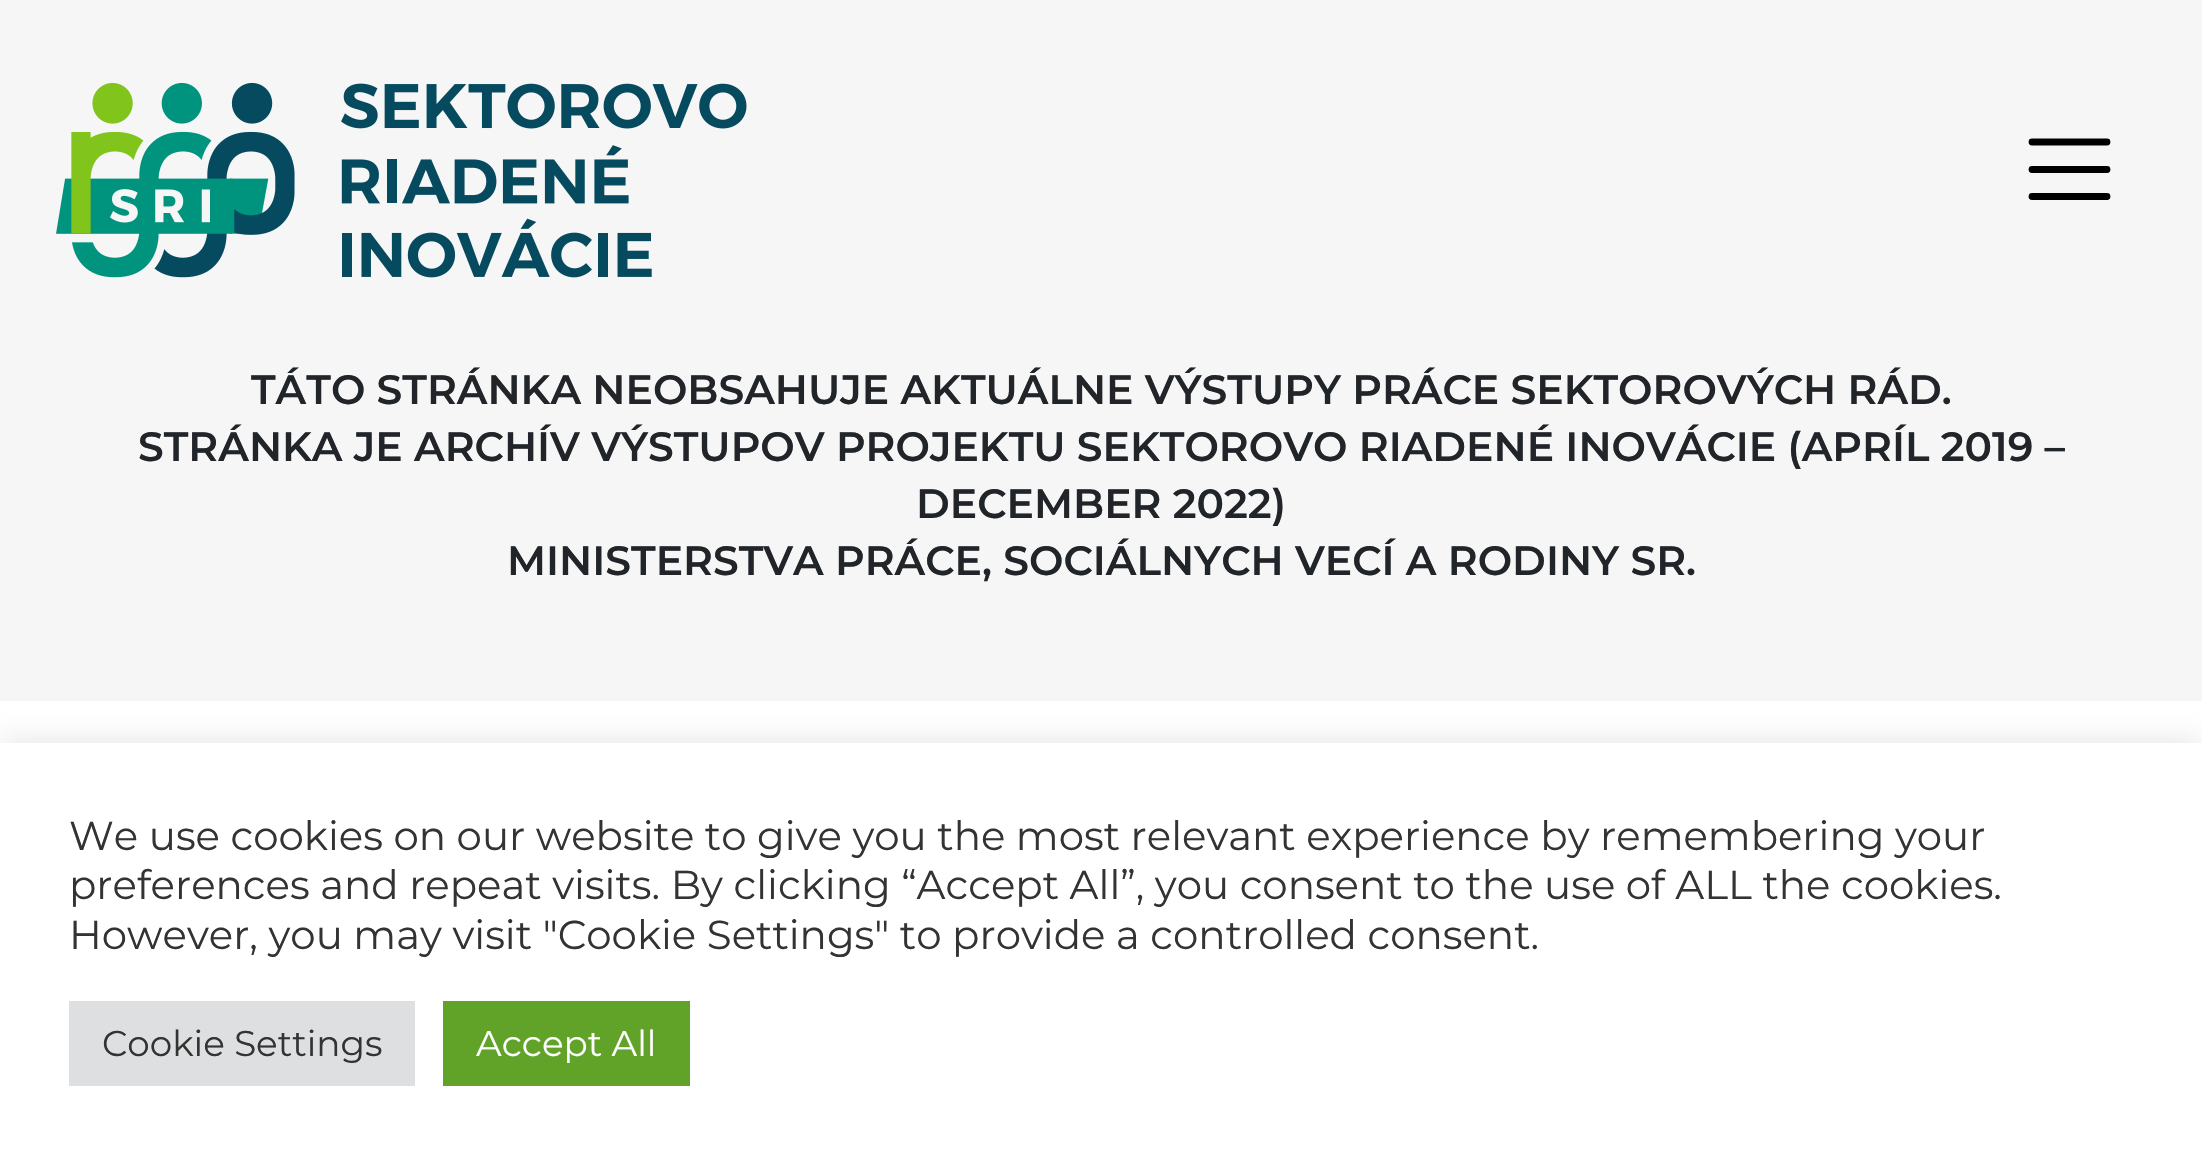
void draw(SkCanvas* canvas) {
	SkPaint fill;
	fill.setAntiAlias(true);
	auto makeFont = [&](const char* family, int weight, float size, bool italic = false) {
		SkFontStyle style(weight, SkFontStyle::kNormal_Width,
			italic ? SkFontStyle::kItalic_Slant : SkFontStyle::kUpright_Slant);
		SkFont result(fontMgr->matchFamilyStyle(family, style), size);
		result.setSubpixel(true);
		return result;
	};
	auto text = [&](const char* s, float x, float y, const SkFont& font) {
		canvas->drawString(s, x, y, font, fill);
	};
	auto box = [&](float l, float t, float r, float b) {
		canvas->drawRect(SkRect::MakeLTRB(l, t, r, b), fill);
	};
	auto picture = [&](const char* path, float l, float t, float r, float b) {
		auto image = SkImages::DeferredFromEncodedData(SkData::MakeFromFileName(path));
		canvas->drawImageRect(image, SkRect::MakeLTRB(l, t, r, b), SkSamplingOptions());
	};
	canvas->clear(0xFFFFFFFF);
	fill.setColor(0xFFF6F6F6);
	box(0, 0, 2202, 701);
	picture("image0.png", 56, 82, 747, 278);
	fill.setStyle(SkPaint::kStroke_Style);
	fill.setStrokeWidth(6.8f);
	fill.setStrokeCap(SkPaint::kRound_Cap);
	fill.setColor(0xFF000000);
	canvas->drawPath(SkPathBuilder().moveTo(2032, 142).lineTo(2107, 142).moveTo(2032, 169.5f).lineTo(2107, 169.5f).moveTo(2032, 196.5f).lineTo(2107, 196.5f).detach(), fill);
	fill.setStyle(SkPaint::kFill_Style);
	fill.setColor(0x4DACABAB);
	fill.setMaskFilter(SkMaskFilter::MakeBlur(kNormal_SkBlurStyle, 14));
	canvas->drawRect(SkRect::MakeLTRB(0, 740, 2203, 1166), fill);
	fill.setMaskFilter(nullptr);
	fill.setColor(0xFFFFFFFF);
	box(0, 743, 2202, 1167);
	fill.setColor(0xFFDEDFE0);
	box(69, 1001, 415, 1086);
	fill.setColor(0xFF61A229);
	box(443, 1001, 690, 1086);
	auto font1 = makeFont("Montserrat", 600, 40.9f);
	fill.setColor(0xFF212529);
	text("TÁTO STRÁNKA NEOBSAHUJE AKTUÁLNE VÝSTUPY PRÁCE SEKTOROVÝCH RÁD.", 251, 404, font1);
	text("STRÁNKA JE ARCHÍV VÝSTUPOV PROJEKTU SEKTOROVO RIADENÉ INOVÁCIE (APRÍL 2019 –", 138, 461, font1);
	text("DECEMBER 2022)", 916, 518, font1);
	text("MINISTERSTVA PRÁCE, SOCIÁLNYCH VECÍ A RODINY SR.", 507, 575, font1);
	auto font2 = makeFont("Montserrat", 400, 40.35f);
	fill.setColor(0xFF333333);
	text("We use cookies on our website to give you the most relevant experience by remembering your", 69, 850, font2);
	text("preferences and repeat visits. By clicking “Accept All”, you consent to the use of ALL the cookies.", 69, 899, font2);
	text("However, you may visit \"Cookie Settings\" to provide a controlled consent.", 69, 949, font2);
	auto font3 = makeFont("Montserrat", 400, 35.75f);
	text("Cookie Settings", 102, 1056, font3);
	fill.setColor(0xFFFFFFFF);
	text("Accept All", 476, 1056, font3);
}
